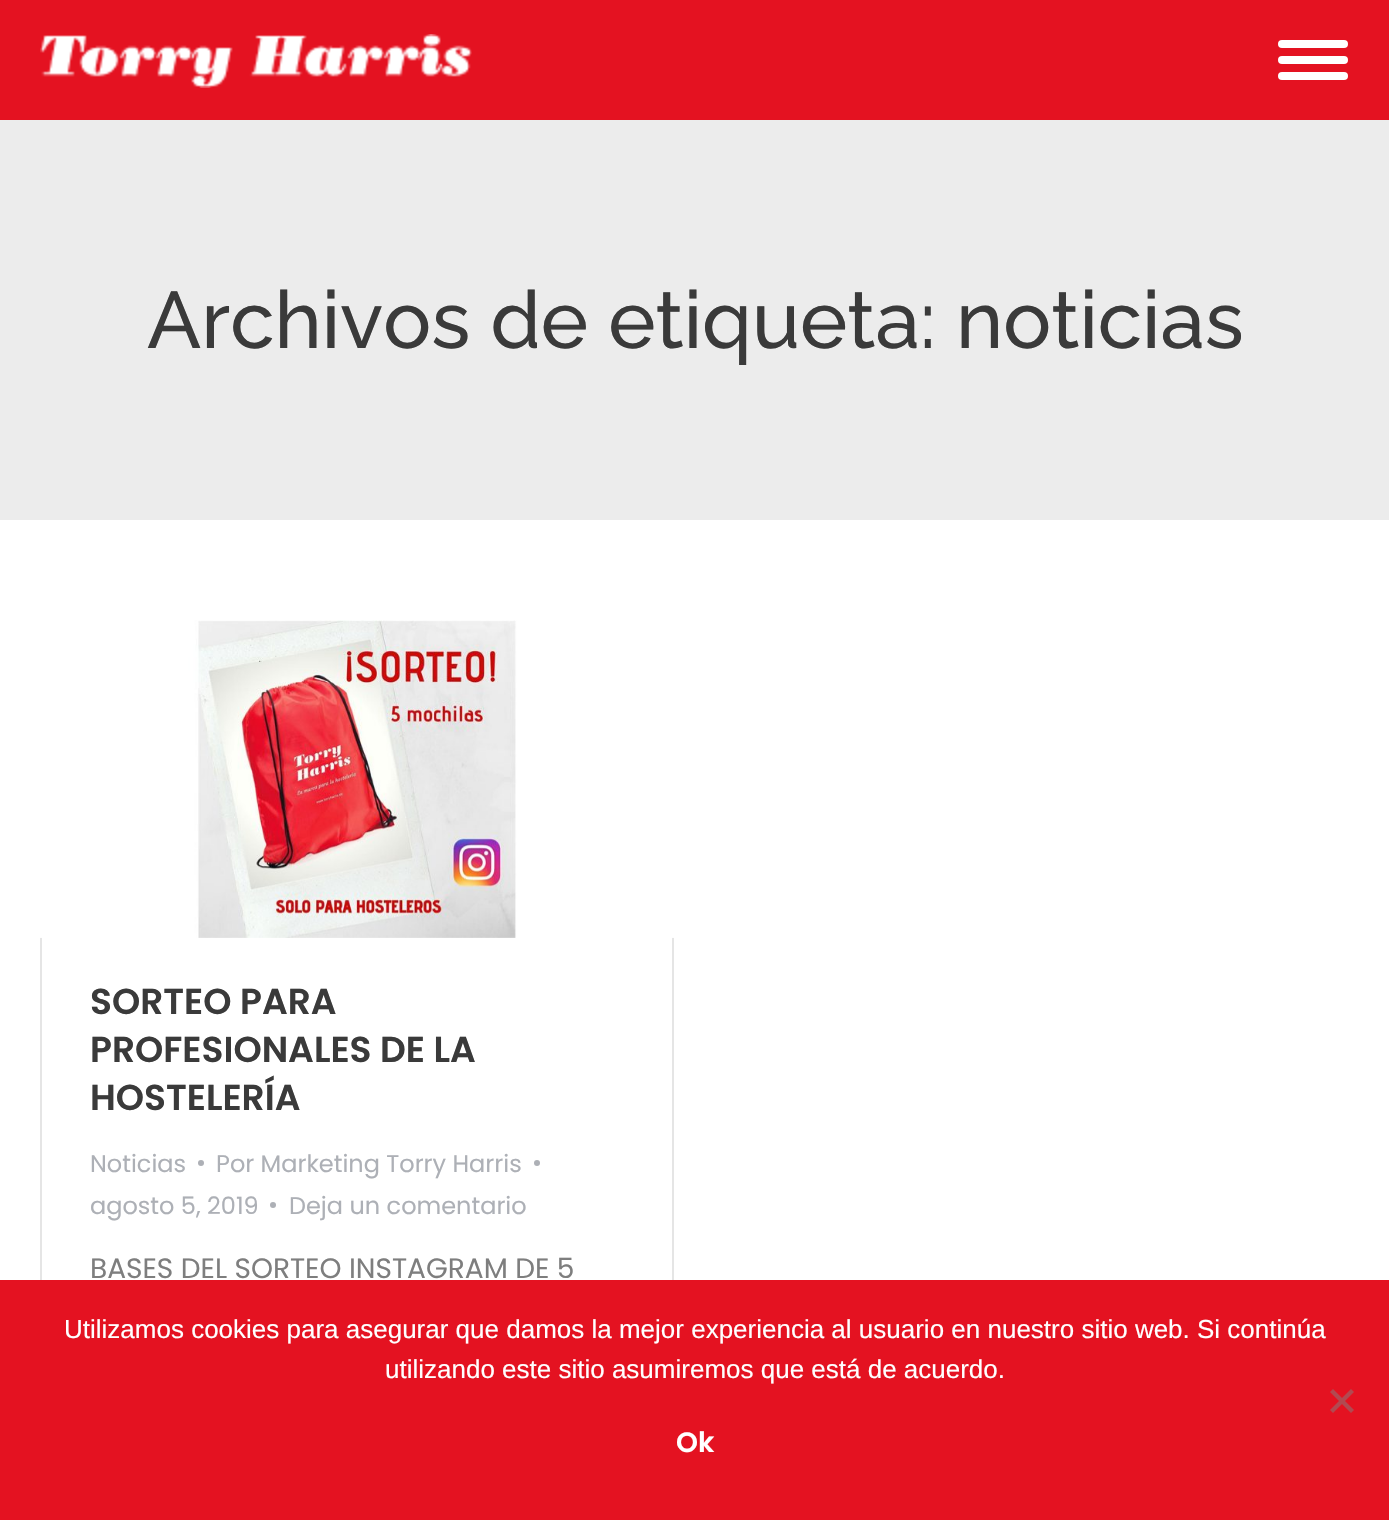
void draw(SkCanvas* canvas) {
	SkPaint fill;
	fill.setAntiAlias(true);
	auto makeFont = [&](const char* family, int weight, float size, bool italic = false) {
		SkFontStyle style(weight, SkFontStyle::kNormal_Width,
			italic ? SkFontStyle::kItalic_Slant : SkFontStyle::kUpright_Slant);
		SkFont result(fontMgr->matchFamilyStyle(family, style), size);
		result.setSubpixel(true);
		return result;
	};
	auto text = [&](const char* s, float x, float y, const SkFont& font) {
		canvas->drawString(s, x, y, font, fill);
	};
	auto box = [&](float l, float t, float r, float b) {
		canvas->drawRect(SkRect::MakeLTRB(l, t, r, b), fill);
	};
	auto roundBox = [&](float l, float t, float r, float b, float radius) {
		canvas->drawRoundRect(SkRect::MakeLTRB(l, t, r, b), radius, radius, fill);
	};
	auto picture = [&](const char* path, float l, float t, float r, float b) {
		auto image = SkImages::DeferredFromEncodedData(SkData::MakeFromFileName(path));
		canvas->drawImageRect(image, SkRect::MakeLTRB(l, t, r, b), SkSamplingOptions());
	};
	canvas->clear(0xFFFFFFFF);
	fill.setColor(0xFFE41221);
	box(0, 0, 1389, 120);
	picture("image0.png", 40, 34, 472, 88);
	fill.setColor(0xFFFFFFFF);
	roundBox(1278, 40, 1348, 48, 4);
	roundBox(1278, 56, 1348, 64, 4);
	roundBox(1278, 72, 1348, 80, 4);
	fill.setColor(0xFFECECEC);
	box(0, 120, 1389, 520);
	fill.setStyle(SkPaint::kStroke_Style);
	fill.setStrokeWidth(2);
	fill.setColor(0xFFE5E5E5);
	canvas->drawRect(SkRect::MakeLTRB(41, 621, 673, 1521), fill);
	picture("image1.png", 40, 620, 674, 938);
	fill.setStyle(SkPaint::kFill_Style);
	fill.setColor(0xFFADB0B6);
	canvas->drawCircle(201, 1163, 3, fill);
	canvas->drawCircle(537, 1163, 3, fill);
	canvas->drawCircle(273, 1205, 3, fill);
	fill.setColor(0xFFE41221);
	box(0, 1280, 1389, 1520);
	fill.setColor(0xFFB24951);
	canvas->drawPath(SkPathBuilder().moveTo(1351, 1389).lineTo(1354, 1392).lineTo(1333, 1413).lineTo(1330, 1410).close().detach(), fill);
	canvas->drawPath(SkPathBuilder().moveTo(1330, 1392).lineTo(1333, 1389).lineTo(1354, 1410).lineTo(1351, 1413).close().detach(), fill);
	auto font1 = makeFont("Raleway", 500, 80);
	fill.setColor(0xFF3A3A3A);
	text("Archivos de etiqueta: noticias", 147, 348, font1);
	auto font2 = makeFont("Poppins", 600, 36);
	text("SORTEO PARA", 90, 1014, font2);
	text("PROFESIONALES DE LA", 90, 1062, font2);
	text("HOSTELERÍA", 90, 1110, font2);
	auto font3 = makeFont("Poppins", 400, 24);
	fill.setColor(0xFFADB0B6);
	text("Noticias", 90, 1172, font3);
	text("Por Marketing Torry Harris", 216, 1172, font3);
	text("agosto 5, 2019", 90, 1214, font3);
	text("Deja un comentario", 289, 1214, font3);
	auto font4 = makeFont("Poppins", 400, 28);
	fill.setColor(0xFF7E7E7E);
	text("BASES DEL SORTEO INSTAGRAM DE 5", 90, 1278, font4);
	auto font5 = makeFont("Liberation Sans", 400, 26);
	fill.setColor(0xFFFFFFFF);
	text("Utilizamos cookies para asegurar que damos la mejor experiencia al usuario en nuestro sitio web. Si continúa", 64, 1338, font5);
	text("utilizando este sitio asumiremos que está de acuerdo.", 385, 1378, font5);
	auto font6 = makeFont("Poppins", 600, 28);
	text("Ok", 676, 1452, font6);
}
